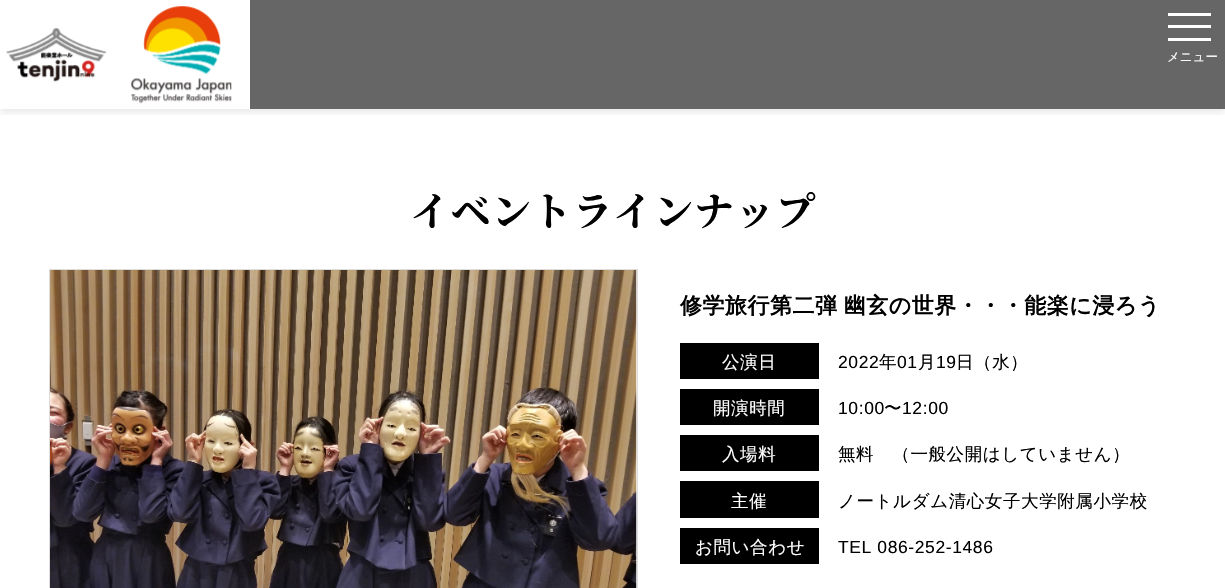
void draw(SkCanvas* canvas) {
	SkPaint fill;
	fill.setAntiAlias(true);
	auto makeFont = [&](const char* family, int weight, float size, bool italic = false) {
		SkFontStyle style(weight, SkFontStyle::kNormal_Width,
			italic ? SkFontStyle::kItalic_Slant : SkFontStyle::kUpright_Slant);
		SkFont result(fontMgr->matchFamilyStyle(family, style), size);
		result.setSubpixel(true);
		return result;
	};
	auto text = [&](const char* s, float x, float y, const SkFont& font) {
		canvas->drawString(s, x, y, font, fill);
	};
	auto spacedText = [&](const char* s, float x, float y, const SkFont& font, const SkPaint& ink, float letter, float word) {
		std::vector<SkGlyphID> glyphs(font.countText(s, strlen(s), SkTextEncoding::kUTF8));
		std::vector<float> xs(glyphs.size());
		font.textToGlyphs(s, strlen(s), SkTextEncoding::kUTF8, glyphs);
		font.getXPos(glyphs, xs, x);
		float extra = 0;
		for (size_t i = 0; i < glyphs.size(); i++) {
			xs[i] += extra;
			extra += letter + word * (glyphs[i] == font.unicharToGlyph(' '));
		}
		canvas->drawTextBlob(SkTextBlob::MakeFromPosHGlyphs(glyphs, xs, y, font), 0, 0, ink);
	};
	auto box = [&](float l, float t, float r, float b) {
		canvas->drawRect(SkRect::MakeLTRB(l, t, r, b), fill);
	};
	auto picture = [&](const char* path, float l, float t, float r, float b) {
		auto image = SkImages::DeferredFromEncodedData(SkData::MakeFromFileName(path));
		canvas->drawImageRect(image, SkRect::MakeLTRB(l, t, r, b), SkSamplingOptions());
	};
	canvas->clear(0xFFFFFFFF);
	canvas->save();
	canvas->clipRect(SkRect::MakeLTRB(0, 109, 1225, 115));
	fill.setColor(0x14000000);
	fill.setMaskFilter(SkMaskFilter::MakeBlur(kNormal_SkBlurStyle, 3));
	canvas->drawRect(SkRect::MakeLTRB(0, 4, 1225, 113), fill);
	fill.setMaskFilter(nullptr);
	canvas->restore();
	fill.setColor(0x99000000);
	box(250, 0, 1225, 109);
	fill.setColor(0xFFFFFFFF);
	box(0, 108, 250, 109);
	picture("image0.png", 6, 28, 107, 82);
	picture("image1.png", 131, 6, 232, 104);
	box(1168, 25, 1211, 28);
	box(1168, 13, 1211, 16);
	box(1168, 38, 1211, 41);
	fill.setStyle(SkPaint::kStroke_Style);
	fill.setStrokeWidth(1);
	fill.setColor(0xFFDDDDDD);
	canvas->drawRect(SkRect::MakeLTRB(49.5f, 269.5f, 637.5f, 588.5f), fill);
	picture("image2.png", 50, 270, 637, 588);
	fill.setStyle(SkPaint::kFill_Style);
	fill.setColor(0xFF000000);
	box(680, 343, 819, 379);
	box(680, 389, 819, 425);
	box(680, 435, 819, 471);
	box(680, 481, 819, 518);
	box(680, 528, 819, 564);
	auto font1 = makeFont("WenQuanYi Zen Hei", 500, 12.5f);
	fill.setColor(0xFFFFFFFF);
	text("メニュー", 1167, 61, font1);
	auto font2 = makeFont("Noto Serif JP", 700, 40);
	fill.setColor(0xFF000000);
	spacedText("イベントラインナップ", 410, 226, font2, fill, 0.6f, 0);
	auto font3 = makeFont("WenQuanYi Zen Hei", 700, 21.9f);
	spacedText("修学旅行第二弾 幽玄の世界・・・能楽に浸ろう", 680, 313, font3, fill, 0.6f, -1);
	auto font4 = makeFont("WenQuanYi Zen Hei", 500, 17.5f);
	fill.setColor(0xFFFFFFFF);
	spacedText("公演日", 722, 368, font4, fill, 0.6f, 0);
	auto font5 = makeFont("Liberation Sans", 400, 17.5f);
	fill.setColor(0xFF000000);
	spacedText("2022", 838, 368, font5, fill, 0.6f, 0);
	spacedText("年", 879, 368, font4, fill, 0.6f, 0);
	spacedText("01", 897, 368, font5, fill, 0.6f, 0);
	spacedText("月", 918, 368, font4, fill, 0.6f, 0);
	spacedText("19", 936, 368, font5, fill, 0.6f, 0);
	spacedText("日（水）", 956, 368, font4, fill, 0.6f, 0);
	fill.setColor(0xFFFFFFFF);
	spacedText("開演時間", 713, 414, font4, fill, 0.6f, 0);
	fill.setColor(0xFF000000);
	spacedText("10:00", 838, 414, font5, fill, 0.6f, 0);
	spacedText("〜", 884, 414, font4, fill, 0.6f, 0);
	spacedText("12:00", 902, 414, font5, fill, 0.6f, 0);
	fill.setColor(0xFFFFFFFF);
	spacedText("入場料", 722, 460, font4, fill, 0.6f, 0);
	fill.setColor(0xFF000000);
	spacedText("無料　（一般公開はしていません）", 838, 460, font4, fill, 0.6f, 0);
	fill.setColor(0xFFFFFFFF);
	spacedText("主催", 731, 507, font4, fill, 0.6f, 0);
	fill.setColor(0xFF000000);
	spacedText("ノートルダム清心女子大学附属小学校", 838, 507, font4, fill, 0.6f, 0);
	fill.setColor(0xFFFFFFFF);
	spacedText("お問い合わせ", 695, 553, font4, fill, 0.6f, 0);
	fill.setColor(0xFF000000);
	spacedText("TEL 086-252-1486", 838, 553, font5, fill, 0.6f, 0);
}
